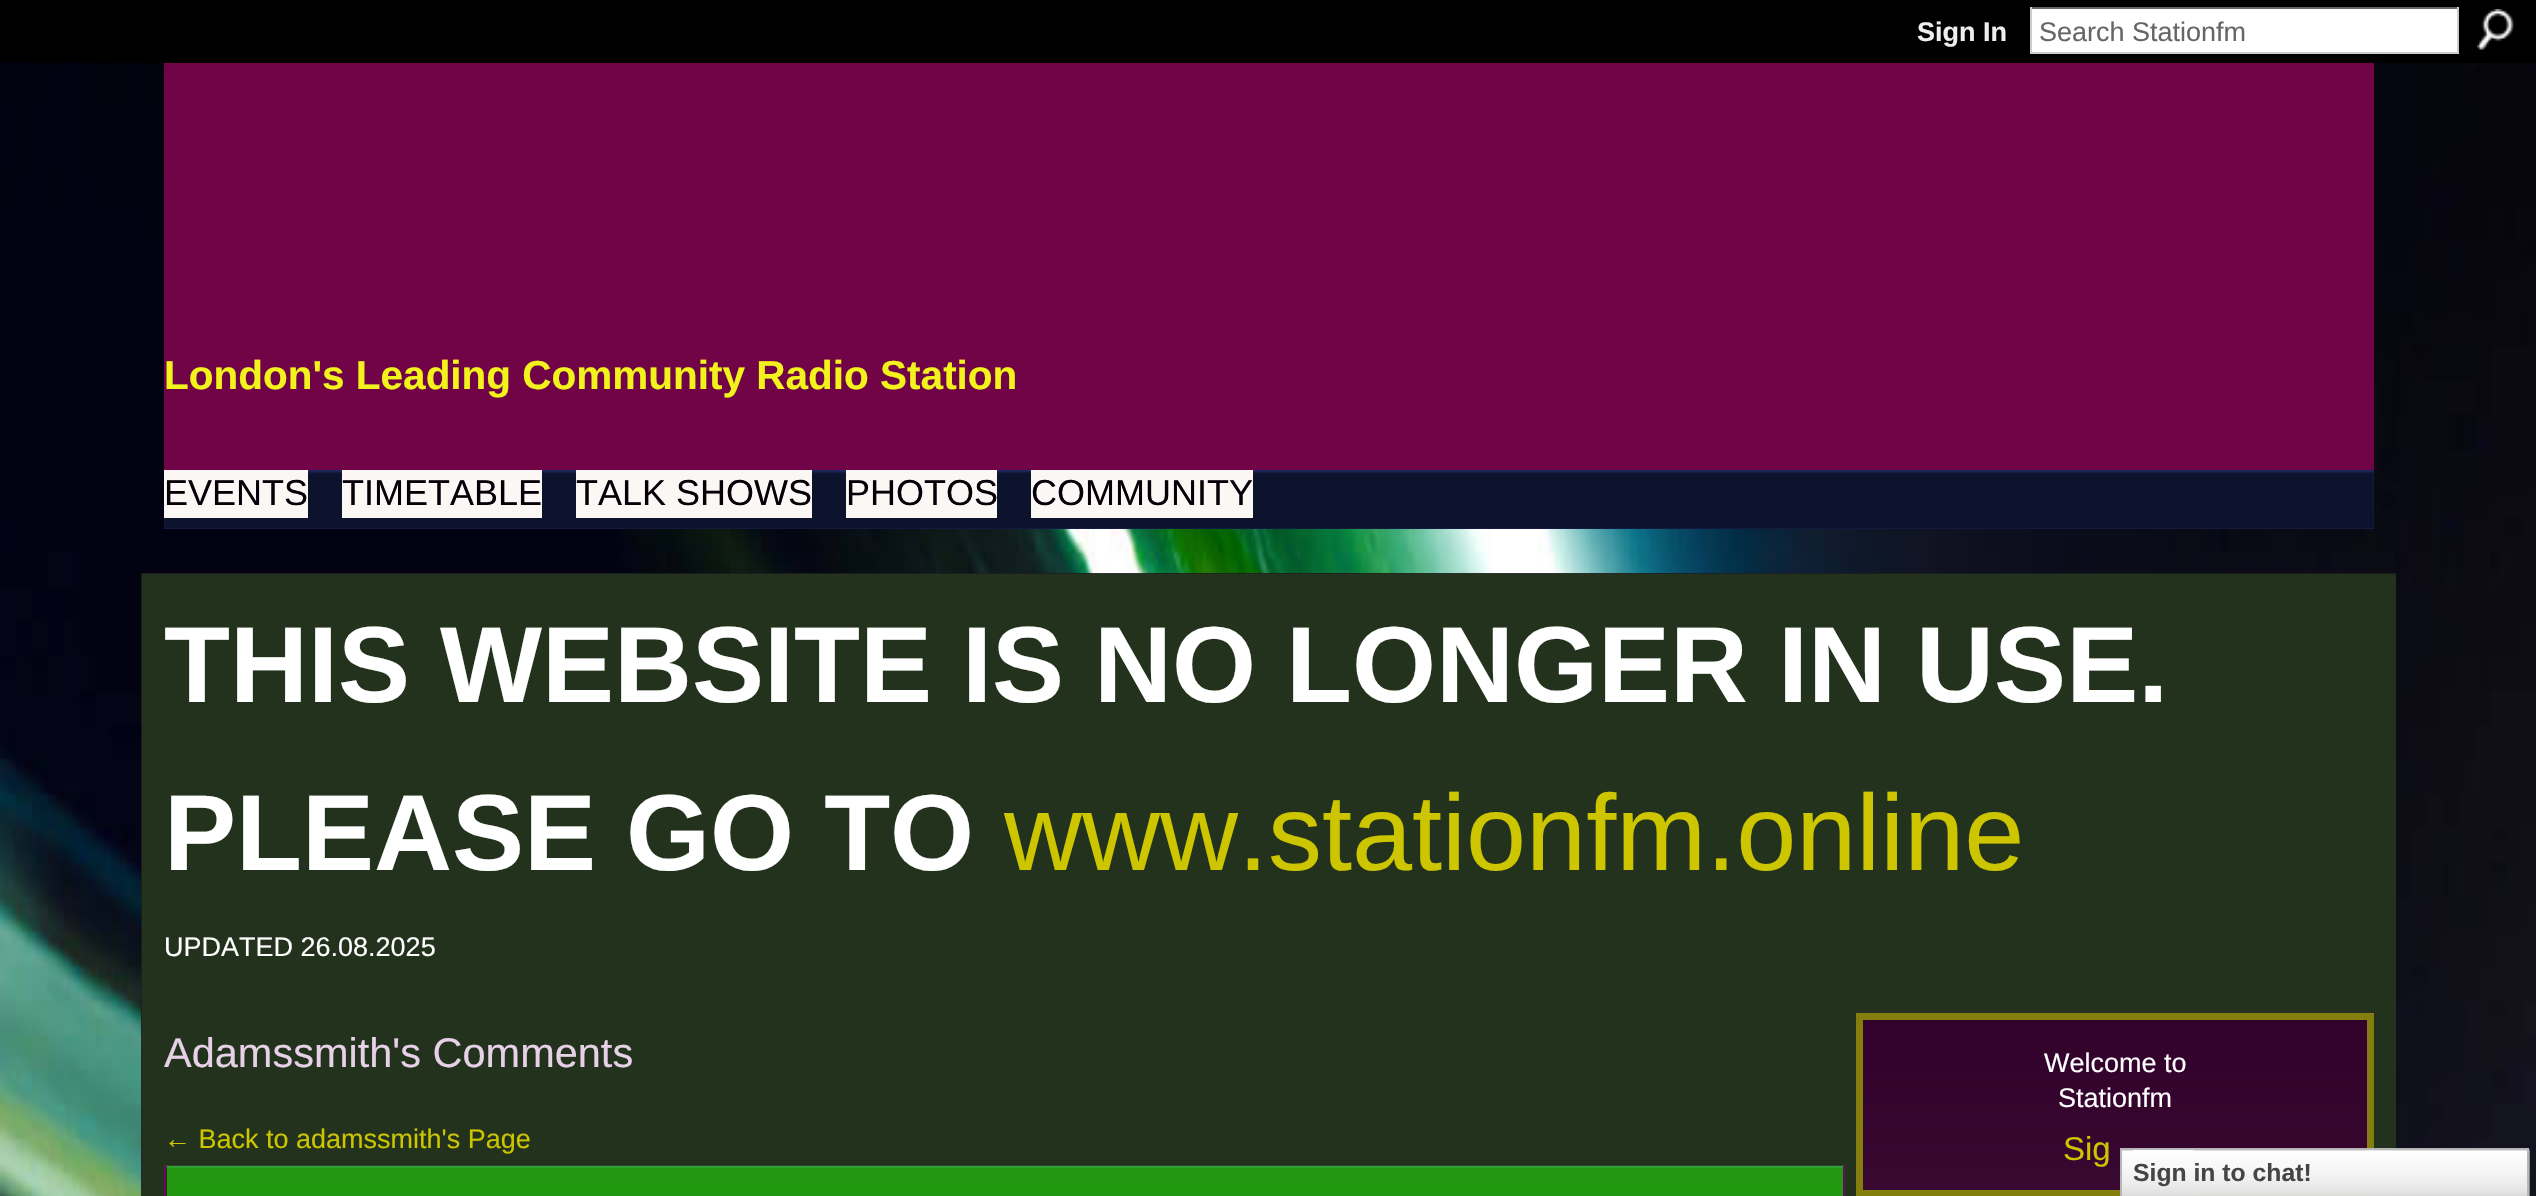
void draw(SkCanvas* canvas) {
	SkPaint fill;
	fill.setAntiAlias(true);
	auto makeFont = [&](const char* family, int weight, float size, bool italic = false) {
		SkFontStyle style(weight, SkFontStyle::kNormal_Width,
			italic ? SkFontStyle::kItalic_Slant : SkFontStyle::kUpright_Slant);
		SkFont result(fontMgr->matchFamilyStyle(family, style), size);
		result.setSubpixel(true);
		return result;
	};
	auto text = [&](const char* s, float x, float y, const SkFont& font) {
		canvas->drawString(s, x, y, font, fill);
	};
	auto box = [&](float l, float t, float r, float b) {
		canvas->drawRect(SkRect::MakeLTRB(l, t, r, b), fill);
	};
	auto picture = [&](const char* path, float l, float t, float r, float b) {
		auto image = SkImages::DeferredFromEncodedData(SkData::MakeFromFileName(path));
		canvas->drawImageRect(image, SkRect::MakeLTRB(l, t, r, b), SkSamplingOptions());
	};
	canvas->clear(0xFFFFFFFF);
	picture("image0.png", 0, 63, 2536, 1196);
	fill.setColor(0xFF000000);
	box(0, 0, 2536, 63);
	fill.setColor(0xFFFFFFFF);
	box(2032, 9, 2457, 52);
	fill.setColor(0xFF666666);
	box(2030, 7, 2459, 9);
	fill.setColor(0xFFCCCCCC);
	box(2457, 7, 2459, 54);
	box(2030, 52, 2459, 54);
	box(2030, 7, 2032, 54);
	picture("image1.png", 2477, 9, 2514, 50);
	fill.setColor(0xFF700447);
	box(164, 63, 2374, 470);
	fill.setColor(0xFF213073);
	box(164, 470, 2374, 529);
	picture("image2.png", 164, 470, 2374, 529);
	fill.setColor(0xFFFAF7F5);
	box(164, 470, 308, 518);
	box(342, 470, 542, 518);
	box(576, 470, 812, 518);
	box(846, 470, 997, 518);
	box(1031, 470, 1253, 518);
	fill.setColor(0xFF4CED0C);
	box(142, 574, 2396, 1196);
	fill.setColor(0xE61D1D1D);
	box(141, 573, 2396, 990);
	box(141, 990, 2396, 1196);
	picture("image3.png", 164, 1165, 1845, 1196);
	fill.setColor(0xFF09F219);
	box(167, 1166, 1843, 1196);
	picture("image4.png", 164, 1165, 1845, 1196);
	fill.setColor(0xFF660A66);
	box(1843, 1166, 1845, 1196);
	box(164, 1166, 166, 1196);
	fill.setColor(0xFF610356);
	box(1863, 1020, 2367, 1190);
	picture("image5.png", 1856, 1012, 2374, 1190);
	fill.setStyle(SkPaint::kStroke_Style);
	fill.setStrokeWidth(7);
	fill.setColor(0xFF847F0C);
	canvas->drawRect(SkRect::MakeLTRB(1859.5f, 1016.5f, 2370.5f, 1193.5f), fill);
	picture("image6.png", 2122, 1149, 2530, 1196);
	fill.setStrokeWidth(2);
	fill.setColor(0xFFB7B7B7);
	canvas->drawRect(SkRect::MakeLTRB(2121, 1149, 2528, 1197), fill);
	picture("image7.png", 2133, 1149, 2194, 1196);
	auto font1 = makeFont("Liberation Sans", 700, 27);
	fill.setStyle(SkPaint::kFill_Style);
	fill.setColor(0xFFEEEEEE);
	text("Sign In", 1917, 41, font1);
	auto font2 = makeFont("Liberation Sans", 400, 27);
	fill.setColor(0xFF666666);
	text("Search Stationfm", 2039, 41, font2);
	auto font3 = makeFont("Liberation Sans", 700, 40.5f);
	fill.setColor(0xFFF2F21D);
	text("London's Leading Community Radio Station", 164, 389, font3);
	auto font4 = makeFont("Liberation Sans", 400, 36);
	fill.setColor(0xFF080008);
	text("EVENTS", 164, 505, font4);
	text("TIMETABLE", 342, 505, font4);
	text("TALK SHOWS", 576, 505, font4);
	text("PHOTOS", 846, 505, font4);
	text("COMMUNITY", 1031, 505, font4);
	auto font5 = makeFont("Liberation Sans", 700, 108);
	fill.setColor(0xFFFFFFFF);
	text("THIS WEBSITE IS NO LONGER IN USE.", 164, 702, font5);
	text("PLEASE GO TO", 164, 870, font5);
	auto font6 = makeFont("Liberation Sans", 400, 108);
	fill.setColor(0xFFCCC500);
	text("www.stationfm.online", 1004, 870, font6);
	fill.setColor(0xFFFFFFFF);
	text("UPDATED 26.08.2025", 164, 956, font2);
	auto font7 = makeFont("Liberation Sans", 400, 41.5f);
	fill.setColor(0xFFE6D1E6);
	text("Adamssmith's Comments", 164, 1067, font7);
	fill.setColor(0xFFCCC500);
	text("← Back to adamssmith's Page", 164, 1148, font2);
	fill.setColor(0xFFFFFFFF);
	text("Welcome to", 2044, 1072, font2);
	text("Stationfm", 2058, 1107, font2);
	auto font8 = makeFont("Liberation Sans", 400, 33);
	fill.setColor(0xFFCCC500);
	text("Sig", 2063, 1160, font8);
	auto font9 = makeFont("Liberation Sans", 700, 24.75f);
	fill.setColor(0xFF454545);
	text("Sign in to chat!", 2133, 1181, font9);
}
